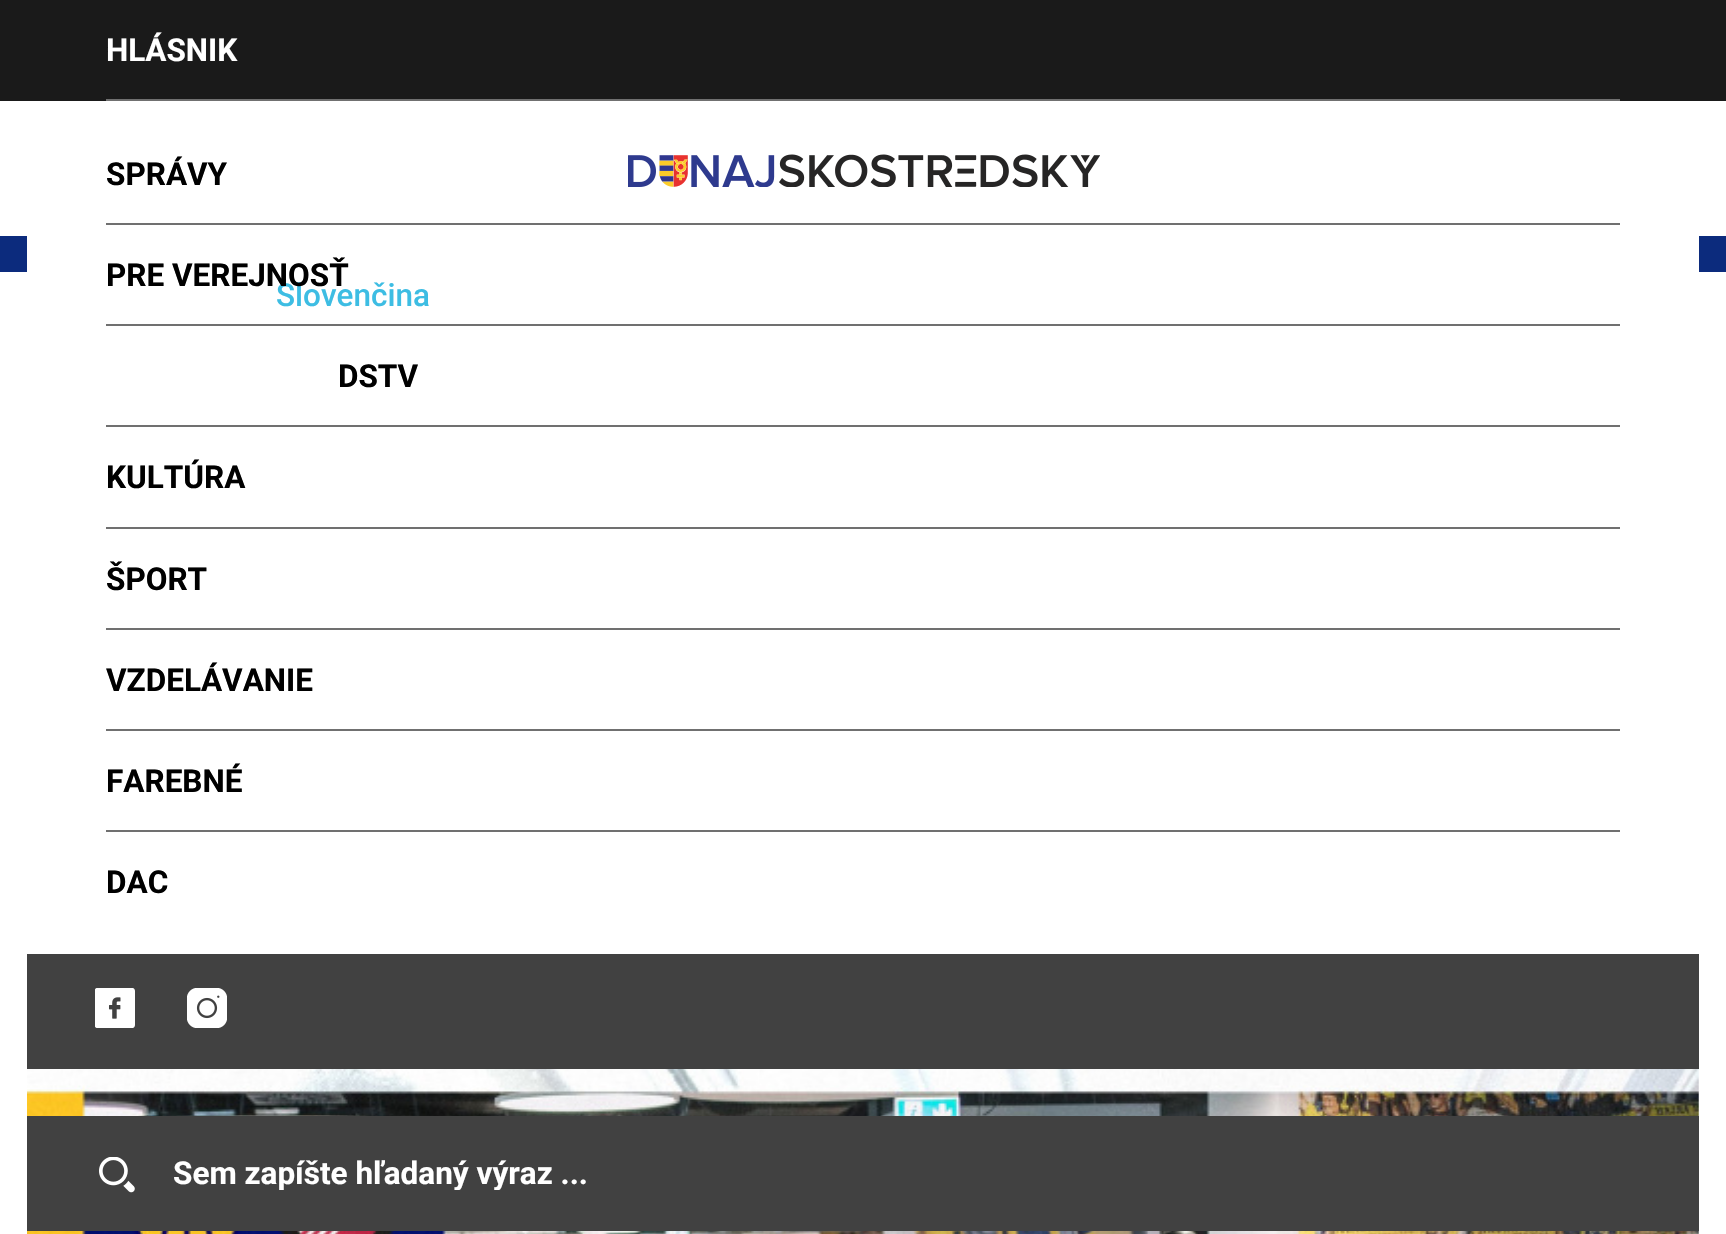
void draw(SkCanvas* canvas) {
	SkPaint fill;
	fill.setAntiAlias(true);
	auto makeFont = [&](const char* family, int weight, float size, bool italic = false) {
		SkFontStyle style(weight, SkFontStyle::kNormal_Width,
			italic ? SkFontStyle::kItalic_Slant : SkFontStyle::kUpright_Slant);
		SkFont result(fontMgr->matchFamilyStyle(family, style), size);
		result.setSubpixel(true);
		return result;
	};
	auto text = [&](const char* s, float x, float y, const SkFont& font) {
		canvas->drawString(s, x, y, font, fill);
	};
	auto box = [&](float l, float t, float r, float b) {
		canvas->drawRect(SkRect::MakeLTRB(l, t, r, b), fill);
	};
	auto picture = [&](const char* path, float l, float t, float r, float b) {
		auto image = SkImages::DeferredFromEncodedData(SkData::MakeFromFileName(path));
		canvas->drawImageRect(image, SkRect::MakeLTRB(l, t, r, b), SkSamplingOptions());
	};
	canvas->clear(0xFFFFFFFF);
	fill.setColor(0xFF1A1A1A);
	box(0, 0, 1726, 101);
	fill.setColor(0xFF707070);
	box(106, 99, 1620, 101);
	fill.setColor(0xFF0C2B7D);
	box(0, 236, 1726, 272);
	fill.setColor(0xFFFFFFFF);
	box(27, 236, 1699, 272);
	fill.setColor(0xFF707070);
	box(106, 223, 1620, 225);
	box(106, 324, 1620, 326);
	box(106, 425, 1620, 427);
	box(106, 527, 1620, 529);
	box(106, 628, 1620, 630);
	box(106, 729, 1620, 731);
	box(106, 830, 1620, 832);
	picture("image0.png", 628, 154, 1100, 187);
	fill.setColor(0xFF414141);
	box(27, 954, 1699, 1069);
	picture("image1.png", 95, 988, 135, 1028);
	picture("image2.png", 187, 988, 227, 1028);
	picture("image4.png", 27, 1069, 1699, 1234);
	box(27, 1116, 1699, 1231);
	picture("image3.png", 99, 1157, 135, 1193);
	auto font1 = makeFont("Roboto", 700, 31.5f);
	fill.setColor(0xFFFFFFFF);
	text("HLÁSNIK", 106, 61, font1);
	auto font2 = makeFont("Roboto", 500, 31.5f);
	fill.setColor(0xFF3DBDE3);
	text("Slovenčina", 276, 306, font2);
	fill.setColor(0xFF000000);
	text("SPRÁVY", 106, 185, font1);
	text("PRE VEREJNOSŤ", 106, 286, font1);
	text("DSTV", 338, 387, font1);
	text("KULTÚRA", 106, 488, font1);
	text("ŠPORT", 106, 590, font1);
	text("VZDELÁVANIE", 106, 691, font1);
	text("FAREBNÉ", 106, 792, font1);
	text("DAC", 106, 893, font1);
	canvas->save();
	canvas->clipRect(SkRect::MakeLTRB(173, 1154, 1676, 1190));
	fill.setColor(0xFFFFFFFF);
	text("Sem zapíšte hľadaný výraz ...", 173, 1184, font1);
	canvas->restore();
}
